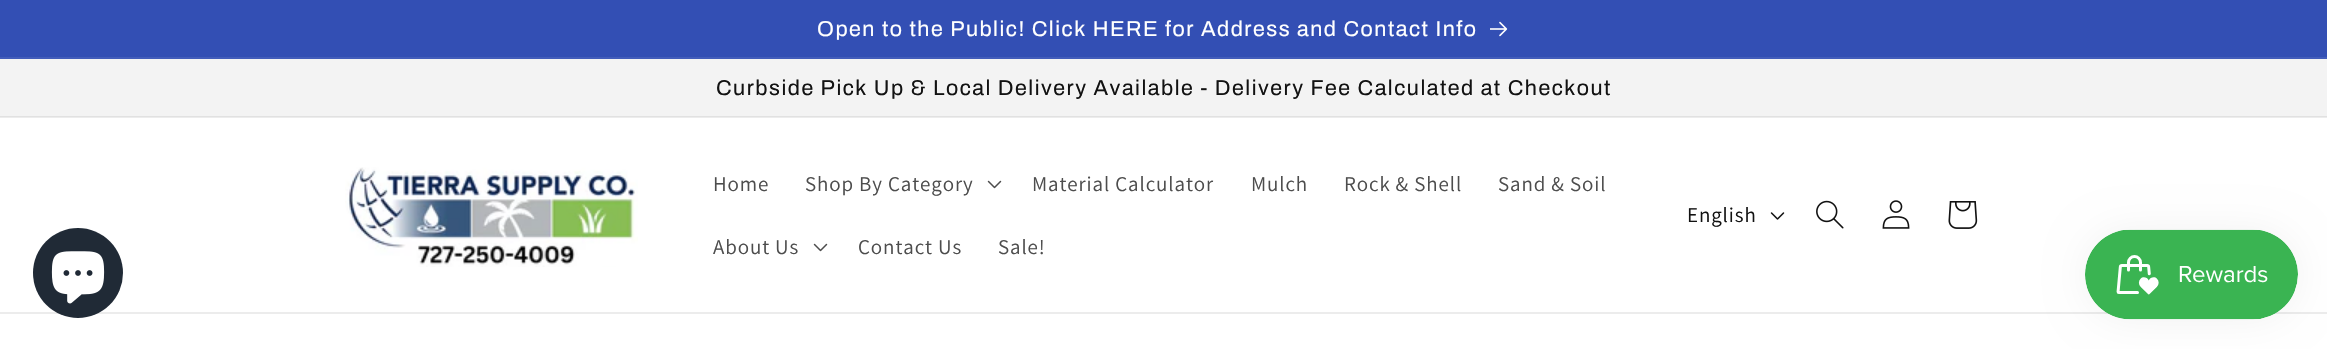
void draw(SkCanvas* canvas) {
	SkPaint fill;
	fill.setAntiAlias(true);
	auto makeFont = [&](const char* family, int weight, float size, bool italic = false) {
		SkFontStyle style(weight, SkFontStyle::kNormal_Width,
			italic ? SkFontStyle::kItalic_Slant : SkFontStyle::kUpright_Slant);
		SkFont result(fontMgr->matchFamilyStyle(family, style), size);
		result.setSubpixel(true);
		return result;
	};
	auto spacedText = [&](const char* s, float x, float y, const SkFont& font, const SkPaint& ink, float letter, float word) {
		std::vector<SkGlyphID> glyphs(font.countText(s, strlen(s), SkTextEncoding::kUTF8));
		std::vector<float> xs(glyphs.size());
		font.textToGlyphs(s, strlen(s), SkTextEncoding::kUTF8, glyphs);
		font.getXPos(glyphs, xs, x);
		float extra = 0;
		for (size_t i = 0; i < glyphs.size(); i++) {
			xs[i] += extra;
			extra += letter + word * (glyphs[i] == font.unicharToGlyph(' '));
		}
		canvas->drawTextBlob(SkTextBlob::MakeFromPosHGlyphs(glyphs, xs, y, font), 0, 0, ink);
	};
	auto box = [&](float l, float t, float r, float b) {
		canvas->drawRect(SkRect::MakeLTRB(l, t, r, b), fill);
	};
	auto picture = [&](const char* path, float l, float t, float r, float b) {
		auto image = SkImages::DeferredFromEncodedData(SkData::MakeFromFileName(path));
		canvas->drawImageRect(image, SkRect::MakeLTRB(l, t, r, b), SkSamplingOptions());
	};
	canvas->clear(0xFFFFFFFF);
	fill.setColor(0xFFECECEC);
	box(0, 117, 2327, 118);
	fill.setColor(0xFF334FB4);
	box(0, 0, 2327, 57);
	fill.setColor(0xFF435DBA);
	box(0, 57, 2327, 59);
	picture("image0.png", 1490, 21, 1508, 37);
	fill.setColor(0xFFF3F3F3);
	box(0, 59, 2327, 116);
	fill.setColor(0xFFE1E1E1);
	box(0, 116, 2327, 117);
	fill.setColor(0xFFECECEC);
	box(0, 312, 2327, 314);
	picture("image1.png", 345, 167, 638, 267);
	picture("image2.png", 987, 180, 1002, 189);
	picture("image2.png", 813, 243, 828, 252);
	picture("image3.png", 1770, 212, 1785, 220);
	picture("image4.png", 1816, 200, 1844, 229);
	picture("image5.png", 1882, 200, 1910, 229);
	picture("image6.png", 1948, 201, 1978, 229);
	fill.setColor(0x0D000000);
	fill.setMaskFilter(SkMaskFilter::MakeBlur(kNormal_SkBlurStyle, 19));
	canvas->drawRoundRect(SkRect::MakeLTRB(2085, 230, 2298, 320), 45, 45, fill);
	fill.setMaskFilter(nullptr);
	picture("image7.png", 2085, 229, 2298, 320);
	fill.setColor(0xFF202A36);
	canvas->drawCircle(78, 273, 45, fill);
	picture("image8.png", 51, 251, 105, 304);
	auto font1 = makeFont("Archivo", 400, 21.45f);
	fill.setColor(0xFFFFFFFF);
	spacedText("Open to the Public! Click HERE for Address and Contact Info", 817, 36, font1, fill, 1.5f, 0);
	fill.setColor(0xFF121212);
	spacedText("Curbside Pick Up & Local Delivery Available - Delivery Fee Calculated at Checkout", 716, 95, font1, fill, 1.5f, 0);
	auto font2 = makeFont("Assistant", 400, 21);
	fill.setColor(0xFF4D4D4D);
	spacedText("Home", 713, 191, font2, fill, 0.9f, 0);
	spacedText("Shop By Category", 805, 191, font2, fill, 0.9f, 0);
	spacedText("Material Calculator", 1032, 191, font2, fill, 0.9f, 0);
	spacedText("Mulch", 1251, 191, font2, fill, 0.9f, 0);
	spacedText("Rock & Shell", 1344, 191, font2, fill, 0.9f, 0);
	spacedText("Sand & Soil", 1498, 191, font2, fill, 0.9f, 0);
	spacedText("About Us", 713, 254, font2, fill, 0.9f, 0);
	spacedText("Contact Us", 858, 254, font2, fill, 0.9f, 0);
	spacedText("Sale!", 998, 254, font2, fill, 0.9f, 0);
	fill.setColor(0xFF121212);
	spacedText("English", 1687, 222, font2, fill, 0.9f, 0);
}
